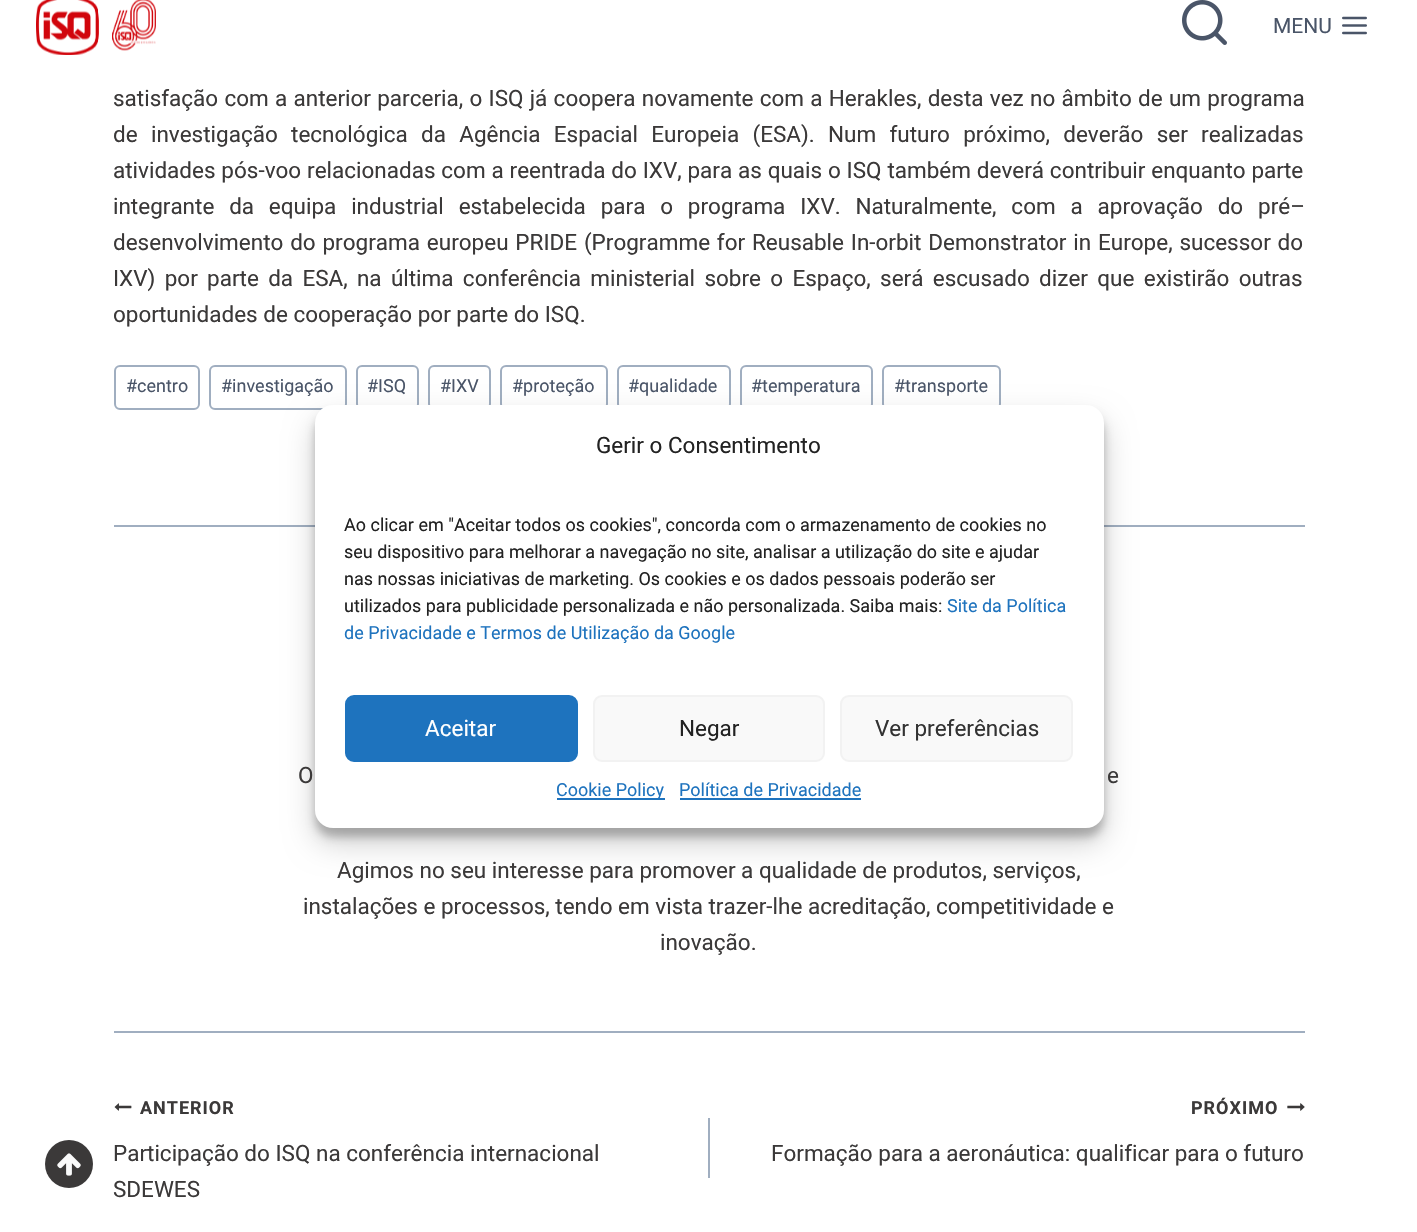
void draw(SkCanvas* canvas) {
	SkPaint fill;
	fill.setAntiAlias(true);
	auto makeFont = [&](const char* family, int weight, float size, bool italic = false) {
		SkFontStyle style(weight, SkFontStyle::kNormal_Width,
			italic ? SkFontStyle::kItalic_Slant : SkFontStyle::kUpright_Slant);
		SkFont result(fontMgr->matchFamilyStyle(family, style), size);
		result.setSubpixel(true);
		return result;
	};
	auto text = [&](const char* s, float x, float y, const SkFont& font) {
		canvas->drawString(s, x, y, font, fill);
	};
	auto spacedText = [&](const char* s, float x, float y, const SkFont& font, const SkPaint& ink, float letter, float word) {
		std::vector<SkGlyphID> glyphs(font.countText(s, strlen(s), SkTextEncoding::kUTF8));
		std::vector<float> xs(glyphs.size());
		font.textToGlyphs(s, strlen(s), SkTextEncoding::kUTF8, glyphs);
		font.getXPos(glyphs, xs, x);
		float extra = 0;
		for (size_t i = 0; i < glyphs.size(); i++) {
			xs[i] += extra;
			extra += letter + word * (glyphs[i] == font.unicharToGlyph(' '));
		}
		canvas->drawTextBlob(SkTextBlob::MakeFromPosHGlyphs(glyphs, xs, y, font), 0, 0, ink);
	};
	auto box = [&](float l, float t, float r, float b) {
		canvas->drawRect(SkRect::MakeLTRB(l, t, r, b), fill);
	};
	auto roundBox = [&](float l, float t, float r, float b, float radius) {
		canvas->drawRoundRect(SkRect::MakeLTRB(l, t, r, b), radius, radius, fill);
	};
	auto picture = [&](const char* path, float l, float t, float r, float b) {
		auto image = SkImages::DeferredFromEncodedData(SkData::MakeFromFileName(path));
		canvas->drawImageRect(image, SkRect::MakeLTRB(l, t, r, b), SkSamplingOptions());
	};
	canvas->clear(0xFFFFFFFF);
	picture("image0.png", 36, 0, 156, 55);
	picture("image1.png", 1182, 0, 1227, 45);
	picture("image2.png", 1342, 16, 1367, 35);
	fill.setStyle(SkPaint::kStroke_Style);
	fill.setStrokeWidth(2);
	fill.setColor(0xFFA0AEC0);
	canvas->drawRoundRect(SkRect::MakeLTRB(115, 366, 199, 409), 5, 5, fill);
	canvas->drawRoundRect(SkRect::MakeLTRB(210, 366, 346, 409), 5, 5, fill);
	canvas->drawRoundRect(SkRect::MakeLTRB(357, 366, 418, 409), 5, 5, fill);
	canvas->drawRoundRect(SkRect::MakeLTRB(429, 366, 490, 409), 5, 5, fill);
	canvas->drawRoundRect(SkRect::MakeLTRB(501, 366, 607, 409), 5, 5, fill);
	canvas->drawRoundRect(SkRect::MakeLTRB(618, 366, 730, 409), 5, 5, fill);
	canvas->drawRoundRect(SkRect::MakeLTRB(741, 366, 872, 409), 5, 5, fill);
	canvas->drawRoundRect(SkRect::MakeLTRB(883, 366, 1000, 409), 5, 5, fill);
	fill.setStyle(SkPaint::kFill_Style);
	box(114, 1031, 1305, 1033);
	box(114, 525, 315, 527);
	box(1104, 525, 1305, 527);
	picture("image3.png", 114, 1103, 132, 1111);
	box(708, 1118, 710, 1178);
	picture("image4.png", 1287, 1103, 1305, 1111);
	fill.setColor(0x3B000000);
	fill.setMaskFilter(SkMaskFilter::MakeBlur(kNormal_SkBlurStyle, 4.5f));
	canvas->drawRoundRect(SkRect::MakeLTRB(315, 414, 1104, 837), 18, 18, fill);
	fill.setMaskFilter(nullptr);
	fill.setColor(0x30000000);
	fill.setMaskFilter(SkMaskFilter::MakeBlur(kNormal_SkBlurStyle, 15));
	canvas->drawRoundRect(SkRect::MakeLTRB(315, 420, 1104, 843), 18, 18, fill);
	fill.setMaskFilter(nullptr);
	fill.setColor(0xFFFFFFFF);
	roundBox(315, 405, 1104, 828, 18);
	fill.setColor(0xFF1E73BE);
	canvas->drawRoundRect(SkRect::MakeLTRB(346, 696, 577, 761), 8, 8, fill);
	fill.setStyle(SkPaint::kStroke_Style);
	canvas->drawRoundRect(SkRect::MakeLTRB(346, 696, 577, 761), 8, 8, fill);
	fill.setStyle(SkPaint::kFill_Style);
	fill.setColor(0xFFF9F9F9);
	canvas->drawRoundRect(SkRect::MakeLTRB(594, 696, 824, 761), 8, 8, fill);
	fill.setStyle(SkPaint::kStroke_Style);
	fill.setColor(0xFFF2F2F2);
	canvas->drawRoundRect(SkRect::MakeLTRB(594, 696, 824, 761), 8, 8, fill);
	fill.setStyle(SkPaint::kFill_Style);
	fill.setColor(0xFFF9F9F9);
	canvas->drawRoundRect(SkRect::MakeLTRB(841, 696, 1072, 761), 8, 8, fill);
	fill.setStyle(SkPaint::kStroke_Style);
	fill.setColor(0xFFF2F2F2);
	canvas->drawRoundRect(SkRect::MakeLTRB(841, 696, 1072, 761), 8, 8, fill);
	fill.setStyle(SkPaint::kFill_Style);
	fill.setColor(0xFF1E73BE);
	box(557, 798, 665, 800);
	box(680, 798, 861, 800);
	fill.setColor(0xFF3B3939);
	canvas->drawCircle(69, 1164, 24, fill);
	picture("image5.png", 57, 1153, 81, 1176);
	auto font1 = makeFont("Roboto", 400, 21);
	fill.setColor(0xFF4A5568);
	text("MENU", 1273, 33, font1);
	auto font2 = makeFont("Roboto", 400, 22.5f);
	fill.setColor(0xFF3B3939);
	spacedText("satisfação com a anterior parceria, o ISQ já coopera novamente com a Herakles, desta vez no âmbito de um programa", 113, 106, font2, fill, 0, 0.7f);
	spacedText("de investigação tecnológica da Agência Espacial Europeia (ESA). Num futuro próximo, deverão ser realizadas", 113, 142, font2, fill, 0, 7.75f);
	spacedText("atividades pós-voo relacionadas com a reentrada do IXV, para as quais o ISQ também deverá contribuir enquanto parte", 113, 178, font2, fill, 0, 0.25f);
	spacedText("integrante da equipa industrial estabelecida para o programa IXV. Naturalmente, com a aprovação do pré–", 113, 214, font2, fill, 0, 9.25f);
	spacedText("desenvolvimento do programa europeu PRIDE (Programme for Reusable In-orbit Demonstrator in Europe, sucessor do", 113, 250, font2, fill, 0, 1.25f);
	spacedText("IXV) por parte da ESA, na última conferência ministerial sobre o Espaço, será escusado dizer que existirão outras", 113, 286, font2, fill, 0, 3.75f);
	text("oportunidades de cooperação por parte do ISQ.", 113, 322, font2);
	auto font3 = makeFont("Roboto", 400, 18);
	fill.setColor(0xFF4A5568);
	text("#centro", 126, 392, font3);
	text("#investigação", 221, 392, font3);
	text("#ISQ", 367, 392, font3);
	text("#IXV", 440, 392, font3);
	text("#proteção", 512, 392, font3);
	text("#qualidade", 628, 392, font3);
	text("#temperatura", 751, 392, font3);
	text("#transporte", 894, 392, font3);
	fill.setColor(0xFF3B3939);
	text("O", 298, 783, font2);
	text("e", 1107, 783, font2);
	text("Agimos no seu interesse para promover a qualidade de produtos, serviços,", 337, 878, font2);
	text("instalações e processos, tendo em vista trazer-lhe acreditação, competitividade e", 303, 914, font2);
	text("inovação.", 660, 950, font2);
	auto font4 = makeFont("Roboto", 700, 18);
	spacedText("ANTERIOR", 140, 1114, font4, fill, 1, 0);
	text("Participação do ISQ na conferência internacional", 113, 1161, font2);
	text("SDEWES", 113, 1197, font2);
	spacedText("PRÓXIMO", 1191, 1114, font4, fill, 1, 0);
	text("Formação para a aeronáutica: qualificar para o futuro", 771, 1161, font2);
	fill.setColor(0xFF222222);
	text("Gerir o Consentimento", 596, 453, font2);
	text("Ao clicar em \"Aceitar todos os cookies\", concorda com o armazenamento de cookies no", 344, 531, font3);
	text("seu dispositivo para melhorar a navegação no site, analisar a utilização do site e ajudar", 344, 558, font3);
	text("nas nossas iniciativas de marketing. Os cookies e os dados pessoais poderão ser", 344, 585, font3);
	text("utilizados para publicidade personalizada e não personalizada. Saiba mais:", 344, 612, font3);
	fill.setColor(0xFF1E73BE);
	text("Site da Política", 947, 612, font3);
	text("de Privacidade e Termos de Utilização da Google", 344, 639, font3);
	fill.setColor(0xFFFFFFFF);
	text("Aceitar", 425, 736, font2);
	fill.setColor(0xFF222222);
	text("Negar", 679, 736, font2);
	fill.setColor(0xFF333333);
	text("Ver preferências", 875, 736, font2);
	fill.setColor(0xFF1E73BE);
	text("Cookie Policy", 556, 796, font3);
	text("Política de Privacidade", 679, 796, font3);
}
